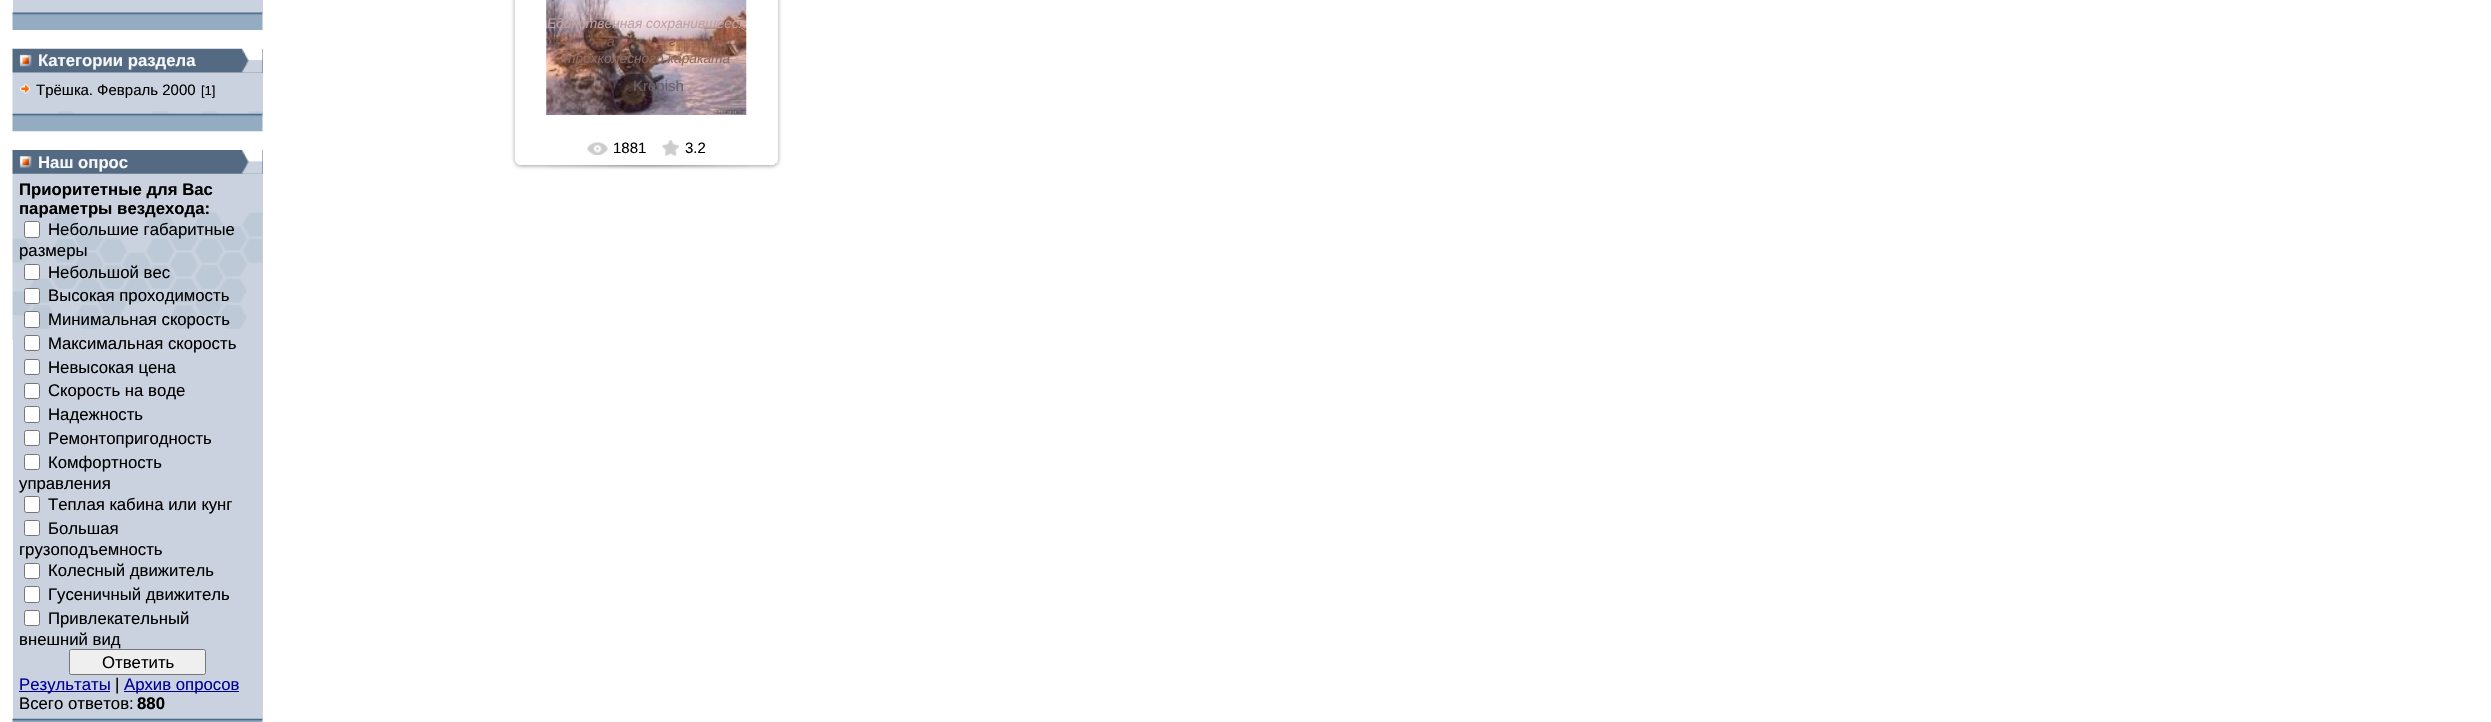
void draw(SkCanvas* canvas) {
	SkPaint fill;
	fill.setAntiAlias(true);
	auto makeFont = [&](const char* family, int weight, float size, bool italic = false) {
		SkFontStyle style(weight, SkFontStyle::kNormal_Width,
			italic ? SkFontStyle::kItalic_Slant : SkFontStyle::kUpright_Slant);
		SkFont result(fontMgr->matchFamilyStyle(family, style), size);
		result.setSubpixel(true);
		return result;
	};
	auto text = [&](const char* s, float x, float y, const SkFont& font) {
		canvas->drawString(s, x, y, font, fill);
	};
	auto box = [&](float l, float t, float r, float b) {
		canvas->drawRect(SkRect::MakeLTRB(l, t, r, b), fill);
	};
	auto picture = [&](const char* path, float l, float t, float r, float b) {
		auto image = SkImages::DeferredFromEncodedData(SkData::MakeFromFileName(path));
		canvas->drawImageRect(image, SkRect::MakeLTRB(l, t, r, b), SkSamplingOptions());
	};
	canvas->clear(0xFFFFFFFF);
	fill.setColor(0xFFC9D2DE);
	box(13, 0, 263, 13);
	picture("image0.png", 12, 12, 263, 30);
	fill.setColor(0xFF546A82);
	box(13, 49, 263, 73);
	picture("image1.png", 12, 48, 263, 73);
	fill.setColor(0xFFC9D2DE);
	box(13, 73, 263, 114);
	picture("image2.png", 12, 72, 263, 114);
	picture("image3.png", 20, 83, 30, 94);
	picture("image4.png", 12, 113, 263, 132);
	fill.setColor(0xFF546A82);
	box(13, 150, 263, 174);
	picture("image5.png", 12, 150, 263, 174);
	fill.setColor(0xFFC9D2DE);
	box(13, 174, 263, 719);
	picture("image6.png", 12, 173, 263, 340);
	fill.setColor(0xFFFFFFFF);
	canvas->drawRoundRect(SkRect::MakeLTRB(24.5f, 221.5f, 39.5f, 237.5f), 2, 2, fill);
	fill.setStyle(SkPaint::kStroke_Style);
	fill.setStrokeWidth(1);
	fill.setColor(0xFF767676);
	canvas->drawRoundRect(SkRect::MakeLTRB(24.5f, 221.5f, 39.5f, 237.5f), 2, 2, fill);
	fill.setStyle(SkPaint::kFill_Style);
	fill.setColor(0xFFFFFFFF);
	canvas->drawRoundRect(SkRect::MakeLTRB(24.5f, 264.5f, 39.5f, 279.5f), 2, 2, fill);
	fill.setStyle(SkPaint::kStroke_Style);
	fill.setColor(0xFF767676);
	canvas->drawRoundRect(SkRect::MakeLTRB(24.5f, 264.5f, 39.5f, 279.5f), 2, 2, fill);
	fill.setStyle(SkPaint::kFill_Style);
	fill.setColor(0xFFFFFFFF);
	canvas->drawRoundRect(SkRect::MakeLTRB(24.5f, 288.5f, 39.5f, 303.5f), 2, 2, fill);
	fill.setStyle(SkPaint::kStroke_Style);
	fill.setColor(0xFF767676);
	canvas->drawRoundRect(SkRect::MakeLTRB(24.5f, 288.5f, 39.5f, 303.5f), 2, 2, fill);
	fill.setStyle(SkPaint::kFill_Style);
	fill.setColor(0xFFFFFFFF);
	canvas->drawRoundRect(SkRect::MakeLTRB(24.5f, 311.5f, 39.5f, 327.5f), 2, 2, fill);
	fill.setStyle(SkPaint::kStroke_Style);
	fill.setColor(0xFF767676);
	canvas->drawRoundRect(SkRect::MakeLTRB(24.5f, 311.5f, 39.5f, 327.5f), 2, 2, fill);
	fill.setStyle(SkPaint::kFill_Style);
	fill.setColor(0xFFFFFFFF);
	canvas->drawRoundRect(SkRect::MakeLTRB(24.5f, 335.5f, 39.5f, 350.5f), 2, 2, fill);
	fill.setStyle(SkPaint::kStroke_Style);
	fill.setColor(0xFF767676);
	canvas->drawRoundRect(SkRect::MakeLTRB(24.5f, 335.5f, 39.5f, 350.5f), 2, 2, fill);
	fill.setStyle(SkPaint::kFill_Style);
	fill.setColor(0xFFFFFFFF);
	canvas->drawRoundRect(SkRect::MakeLTRB(24.5f, 359.5f, 39.5f, 374.5f), 2, 2, fill);
	fill.setStyle(SkPaint::kStroke_Style);
	fill.setColor(0xFF767676);
	canvas->drawRoundRect(SkRect::MakeLTRB(24.5f, 359.5f, 39.5f, 374.5f), 2, 2, fill);
	fill.setStyle(SkPaint::kFill_Style);
	fill.setColor(0xFFFFFFFF);
	canvas->drawRoundRect(SkRect::MakeLTRB(24.5f, 383.5f, 39.5f, 398.5f), 2, 2, fill);
	fill.setStyle(SkPaint::kStroke_Style);
	fill.setColor(0xFF767676);
	canvas->drawRoundRect(SkRect::MakeLTRB(24.5f, 383.5f, 39.5f, 398.5f), 2, 2, fill);
	fill.setStyle(SkPaint::kFill_Style);
	fill.setColor(0xFFFFFFFF);
	canvas->drawRoundRect(SkRect::MakeLTRB(24.5f, 406.5f, 39.5f, 422.5f), 2, 2, fill);
	fill.setStyle(SkPaint::kStroke_Style);
	fill.setColor(0xFF767676);
	canvas->drawRoundRect(SkRect::MakeLTRB(24.5f, 406.5f, 39.5f, 422.5f), 2, 2, fill);
	fill.setStyle(SkPaint::kFill_Style);
	fill.setColor(0xFFFFFFFF);
	canvas->drawRoundRect(SkRect::MakeLTRB(24.5f, 430.5f, 39.5f, 445.5f), 2, 2, fill);
	fill.setStyle(SkPaint::kStroke_Style);
	fill.setColor(0xFF767676);
	canvas->drawRoundRect(SkRect::MakeLTRB(24.5f, 430.5f, 39.5f, 445.5f), 2, 2, fill);
	fill.setStyle(SkPaint::kFill_Style);
	fill.setColor(0xFFFFFFFF);
	canvas->drawRoundRect(SkRect::MakeLTRB(24.5f, 454.5f, 39.5f, 469.5f), 2, 2, fill);
	fill.setStyle(SkPaint::kStroke_Style);
	fill.setColor(0xFF767676);
	canvas->drawRoundRect(SkRect::MakeLTRB(24.5f, 454.5f, 39.5f, 469.5f), 2, 2, fill);
	fill.setStyle(SkPaint::kFill_Style);
	fill.setColor(0xFFFFFFFF);
	canvas->drawRoundRect(SkRect::MakeLTRB(24.5f, 496.5f, 39.5f, 512.5f), 2, 2, fill);
	fill.setStyle(SkPaint::kStroke_Style);
	fill.setColor(0xFF767676);
	canvas->drawRoundRect(SkRect::MakeLTRB(24.5f, 496.5f, 39.5f, 512.5f), 2, 2, fill);
	fill.setStyle(SkPaint::kFill_Style);
	fill.setColor(0xFFFFFFFF);
	canvas->drawRoundRect(SkRect::MakeLTRB(24.5f, 520.5f, 39.5f, 535.5f), 2, 2, fill);
	fill.setStyle(SkPaint::kStroke_Style);
	fill.setColor(0xFF767676);
	canvas->drawRoundRect(SkRect::MakeLTRB(24.5f, 520.5f, 39.5f, 535.5f), 2, 2, fill);
	fill.setStyle(SkPaint::kFill_Style);
	fill.setColor(0xFFFFFFFF);
	canvas->drawRoundRect(SkRect::MakeLTRB(24.5f, 563.5f, 39.5f, 578.5f), 2, 2, fill);
	fill.setStyle(SkPaint::kStroke_Style);
	fill.setColor(0xFF767676);
	canvas->drawRoundRect(SkRect::MakeLTRB(24.5f, 563.5f, 39.5f, 578.5f), 2, 2, fill);
	fill.setStyle(SkPaint::kFill_Style);
	fill.setColor(0xFFFFFFFF);
	canvas->drawRoundRect(SkRect::MakeLTRB(24.5f, 586.5f, 39.5f, 602.5f), 2, 2, fill);
	fill.setStyle(SkPaint::kStroke_Style);
	fill.setColor(0xFF767676);
	canvas->drawRoundRect(SkRect::MakeLTRB(24.5f, 586.5f, 39.5f, 602.5f), 2, 2, fill);
	fill.setStyle(SkPaint::kFill_Style);
	fill.setColor(0xFFFFFFFF);
	canvas->drawRoundRect(SkRect::MakeLTRB(24.5f, 610.5f, 39.5f, 625.5f), 2, 2, fill);
	fill.setStyle(SkPaint::kStroke_Style);
	fill.setColor(0xFF767676);
	canvas->drawRoundRect(SkRect::MakeLTRB(24.5f, 610.5f, 39.5f, 625.5f), 2, 2, fill);
	fill.setStyle(SkPaint::kFill_Style);
	fill.setColor(0xFFEFEFEF);
	canvas->drawRoundRect(SkRect::MakeLTRB(69.5f, 649.5f, 205.5f, 674.5f), 2, 2, fill);
	fill.setStyle(SkPaint::kStroke_Style);
	fill.setColor(0xFF767676);
	canvas->drawRoundRect(SkRect::MakeLTRB(69.5f, 649.5f, 205.5f, 674.5f), 2, 2, fill);
	fill.setStyle(SkPaint::kFill_Style);
	fill.setColor(0xFF000099);
	box(19, 691, 110, 692);
	box(124, 691, 239, 692);
	picture("image7.png", 12, 718, 263, 722);
	canvas->save();
	canvas->clipPath(SkPathBuilder(SkPathFillType::kEvenOdd).moveTo(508, 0).lineTo(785, 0).lineTo(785, 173).lineTo(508, 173).close().moveTo(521, -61).lineTo(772, -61).cubicTo(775.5f, -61, 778, -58.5f, 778, -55).lineTo(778, 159).cubicTo(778, 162.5f, 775.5f, 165, 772, 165).lineTo(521, 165).cubicTo(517.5f, 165, 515, 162.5f, 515, 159).lineTo(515, -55).cubicTo(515, -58.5f, 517.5f, -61, 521, -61).close().detach(), true);
	fill.setColor(0x5E000000);
	fill.setMaskFilter(SkMaskFilter::MakeBlur(kNormal_SkBlurStyle, 2));
	canvas->drawRoundRect(SkRect::MakeLTRB(515, -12, 778, 166), 6, 6, fill);
	fill.setMaskFilter(nullptr);
	canvas->restore();
	fill.setColor(0xFFDADADA);
	box(775, 163, 776, 164);
	picture("image8.png", 546, 0, 747, 115);
	picture("image9.png", 587, 142, 608, 155);
	picture("image10.png", 662, 140, 679, 156);
	picture("image11.png", 547, 165, 747, 169);
	auto font1 = makeFont("Liberation Sans", 700, 16.75f);
	fill.setColor(0xFFF5F7F9);
	text("Категории раздела", 38, 66, font1);
	auto font2 = makeFont("Liberation Sans", 400, 15);
	fill.setColor(0xFF000000);
	text("Трёшка. Февраль 2000", 36, 95, font2);
	auto font3 = makeFont("Liberation Sans", 400, 13);
	text("[1]", 201, 95, font3);
	fill.setColor(0xFFF5F7F9);
	text("Наш опрос", 38, 168, font1);
	fill.setColor(0xFF000000);
	text("Приоритетные для Вас", 19, 195, font1);
	text("параметры вездехода:", 19, 214, font1);
	auto font4 = makeFont("Liberation Sans", 400, 16.75f);
	text("Небольшие габаритные", 48, 235, font4);
	text("размеры", 19, 256, font4);
	text("Небольшой вес", 48, 278, font4);
	text("Высокая проходимость", 48, 301, font4);
	text("Минимальная скорость", 48, 325, font4);
	text("Максимальная скорость", 48, 349, font4);
	text("Невысокая цена", 48, 373, font4);
	text("Скорость на воде", 48, 396, font4);
	text("Надежность", 48, 420, font4);
	text("Ремонтопригодность", 48, 444, font4);
	text("Комфортность", 48, 468, font4);
	text("управления", 19, 489, font4);
	text("Теплая кабина или кунг", 48, 510, font4);
	text("Большая", 48, 534, font4);
	text("грузоподъемность", 19, 555, font4);
	text("Колесный движитель", 48, 576, font4);
	text("Гусеничный движитель", 48, 600, font4);
	text("Привлекательный", 48, 624, font4);
	text("внешний вид", 19, 645, font4);
	text("Ответить", 102, 668, font4);
	fill.setColor(0xFF000099);
	text("Результаты", 19, 690, font4);
	fill.setColor(0xFF000000);
	text("|", 115, 690, font4);
	fill.setColor(0xFF000099);
	text("Архив опросов", 124, 690, font4);
	fill.setColor(0xFF000000);
	text("Всего ответов:", 19, 709, font4);
	text("880", 137, 709, font1);
	auto font5 = makeFont("Liberation Sans", 400, 13.75f, true);
	fill.setColor(0xFFBDA2A5);
	text("Единственная сохранившееся", 547, 28, font5);
	fill.setColor(0xFF885D51);
	text("а", 607, 46, font5);
	text("г", 669, 46, font5);
	fill.setColor(0xFF8F6C62);
	text("трёхколёсного караката", 564, 63, font5);
	fill.setColor(0xFF6B616B);
	text("Krepish", 633, 91, font2);
	fill.setColor(0xFF000000);
	text("1881", 613, 153, font2);
	text("3.2", 685, 153, font2);
}
